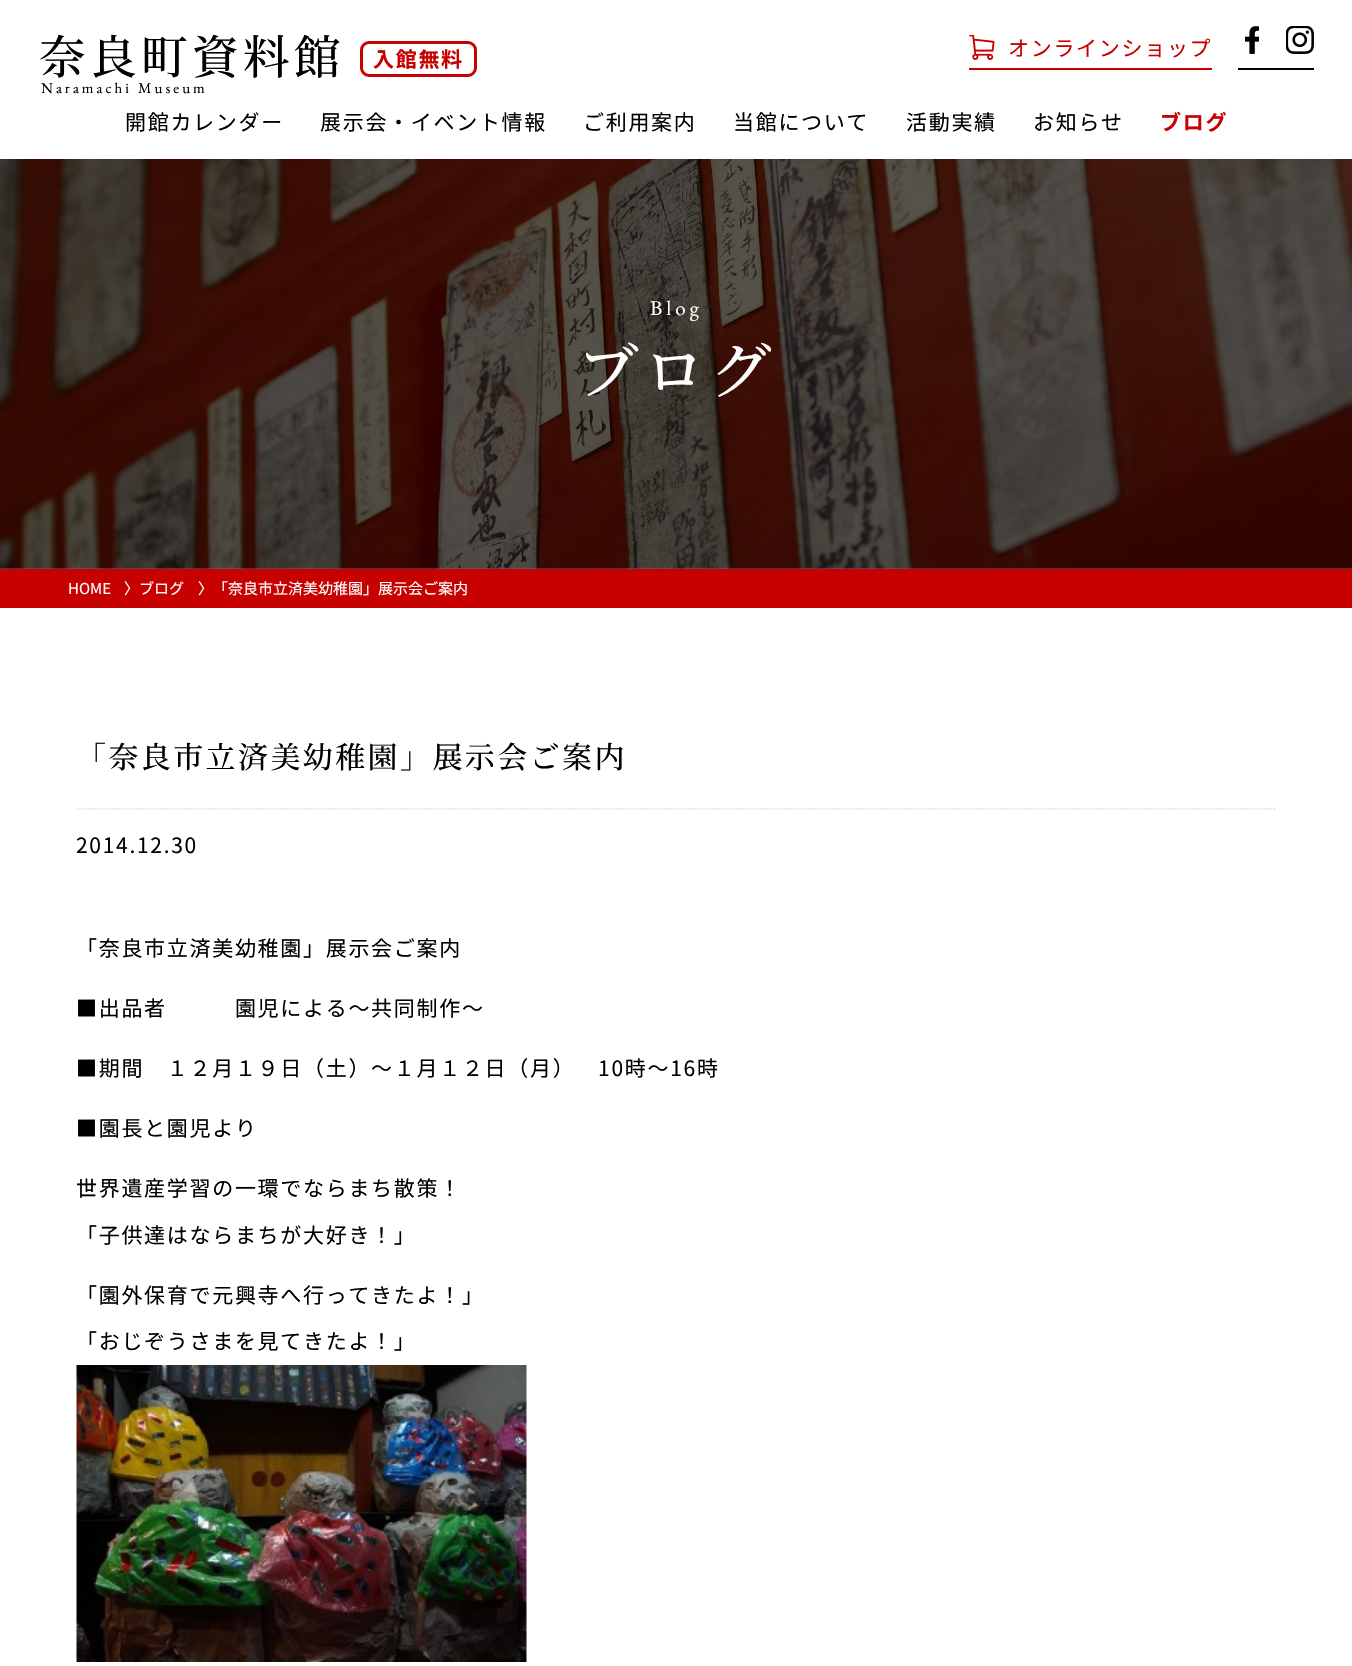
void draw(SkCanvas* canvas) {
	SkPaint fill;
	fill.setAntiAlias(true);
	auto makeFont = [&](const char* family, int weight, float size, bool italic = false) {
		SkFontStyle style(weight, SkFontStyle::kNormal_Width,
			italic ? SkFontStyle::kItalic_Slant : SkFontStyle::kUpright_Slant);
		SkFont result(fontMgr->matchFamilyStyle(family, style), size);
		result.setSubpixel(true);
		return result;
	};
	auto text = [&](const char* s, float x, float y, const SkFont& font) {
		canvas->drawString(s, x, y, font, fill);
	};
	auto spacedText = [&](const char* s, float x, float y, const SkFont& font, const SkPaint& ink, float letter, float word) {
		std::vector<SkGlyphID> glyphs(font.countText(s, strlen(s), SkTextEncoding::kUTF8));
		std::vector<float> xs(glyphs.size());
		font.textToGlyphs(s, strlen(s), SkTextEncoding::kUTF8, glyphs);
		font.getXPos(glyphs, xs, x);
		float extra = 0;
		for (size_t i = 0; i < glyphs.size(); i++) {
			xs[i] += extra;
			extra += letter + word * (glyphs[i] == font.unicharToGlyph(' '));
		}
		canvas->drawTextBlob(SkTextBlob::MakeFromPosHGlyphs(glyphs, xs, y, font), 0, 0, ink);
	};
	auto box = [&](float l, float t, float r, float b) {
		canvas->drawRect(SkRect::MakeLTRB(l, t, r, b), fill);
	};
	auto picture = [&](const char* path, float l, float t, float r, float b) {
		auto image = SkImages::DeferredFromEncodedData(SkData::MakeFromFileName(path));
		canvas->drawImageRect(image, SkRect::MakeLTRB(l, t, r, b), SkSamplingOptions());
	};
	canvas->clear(0xFFFFFFFF);
	fill.setColor(0xFF666666);
	box(0, 568, 1352, 569);
	fill.setStyle(SkPaint::kStroke_Style);
	fill.setStrokeWidth(3);
	fill.setColor(0xFFC70000);
	canvas->drawRoundRect(SkRect::MakeLTRB(361.5f, 42.5f, 475.5f, 75.5f), 7.5f, 7.5f, fill);
	fill.setStyle(SkPaint::kFill_Style);
	box(969, 68, 1212, 70);
	picture("image0.png", 969, 35, 995, 60);
	fill.setColor(0xFF000000);
	box(1238, 68, 1314, 70);
	picture("image1.png", 1245, 26, 1259, 54);
	picture("image2.png", 1286, 26, 1314, 54);
	picture("image3.png", 0, 159, 1352, 569);
	fill.setColor(0xFFC70000);
	box(0, 569, 1352, 608);
	fill.setStyle(SkPaint::kStroke_Style);
	fill.setStrokeWidth(1.5f);
	fill.setColor(0xFFDDDDDD);
	fill.setPathEffect(SkDashPathEffect::Make({{1.5f, 1.5f}}, 0));
	canvas->drawPath(SkPathBuilder().moveTo(76.5f, 809).lineTo(1276.5f, 809).detach(), fill);
	fill.setPathEffect(nullptr);
	picture("image4.png", 76, 1365, 527, 1662);
	auto font1 = makeFont("Noto Serif JP", 500, 46.5f);
	fill.setStyle(SkPaint::kFill_Style);
	fill.setColor(0xFF000000);
	spacedText("奈良町資料館", 39, 74, font1, fill, 4.5f, 0);
	auto font2 = makeFont("EB Garamond", 400, 15);
	spacedText("Naramachi Museum", 41, 93, font2, fill, 3, 0);
	auto font3 = makeFont("Noto Sans JP", 700, 21);
	fill.setColor(0xFFC70000);
	spacedText("入館無料", 373, 67, font3, fill, 1.7f, 0);
	auto font4 = makeFont("Noto Sans JP", 400, 21);
	fill.setColor(0xFF000000);
	spacedText("開館カレンダー", 125, 130, font4, fill, 1.7f, 0);
	spacedText("展示会・イベント情報", 320, 130, font4, fill, 1.7f, 0);
	spacedText("ご利用案内", 583, 130, font4, fill, 1.7f, 0);
	spacedText("当館について", 733, 130, font4, fill, 1.7f, 0);
	spacedText("活動実績", 906, 130, font4, fill, 1.7f, 0);
	spacedText("お知らせ", 1033, 130, font4, fill, 1.7f, 0);
	fill.setColor(0xFFC70000);
	spacedText("ブログ", 1160, 130, font3, fill, 1.7f, 0);
	spacedText("オンラインショップ", 1008, 56, font4, fill, 1.7f, 0);
	auto font5 = makeFont("EB Garamond", 400, 21);
	fill.setColor(0xFFFFFFFF);
	spacedText("Blog", 650, 315, font5, fill, 4, 0);
	auto font6 = makeFont("Noto Serif JP", 500, 61.5f);
	spacedText("ブログ", 577, 393, font6, fill, 5, 0);
	auto font7 = makeFont("Noto Sans JP", 400, 15);
	text("HOME", 68, 594, font7);
	text("〉ブログ", 124, 594, font7);
	text("〉「奈良市立済美幼稚園」展示会ご案内", 198, 594, font7);
	auto font8 = makeFont("Noto Serif JP", 500, 30);
	fill.setColor(0xFF000000);
	spacedText("「奈良市立済美幼稚園」展示会ご案内", 76, 768, font8, fill, 2.4f, 0);
	spacedText("2014.12.30", 76, 853, font4, fill, 1.7f, 0);
	spacedText("「奈良市立済美幼稚園」展示会ご案内", 76, 956, font4, fill, 1.7f, 0);
	spacedText("■出品者　　　園児による～共同制作～", 76, 1016, font4, fill, 1.7f, 0);
	spacedText("■期間　１２月１９日（土）～１月１２日（月）　10時～16時", 76, 1076, font4, fill, 1.7f, 0);
	spacedText("■園長と園児より", 76, 1136, font4, fill, 1.7f, 0);
	spacedText("世界遺産学習の一環でならまち散策！", 76, 1196, font4, fill, 1.7f, 0);
	spacedText("「子供達はならまちが大好き！」", 76, 1243, font4, fill, 1.7f, 0);
	spacedText("「園外保育で元興寺へ行ってきたよ！」", 76, 1303, font4, fill, 1.7f, 0);
	spacedText("「おじぞうさまを見てきたよ！」", 76, 1349, font4, fill, 1.7f, 0);
}
